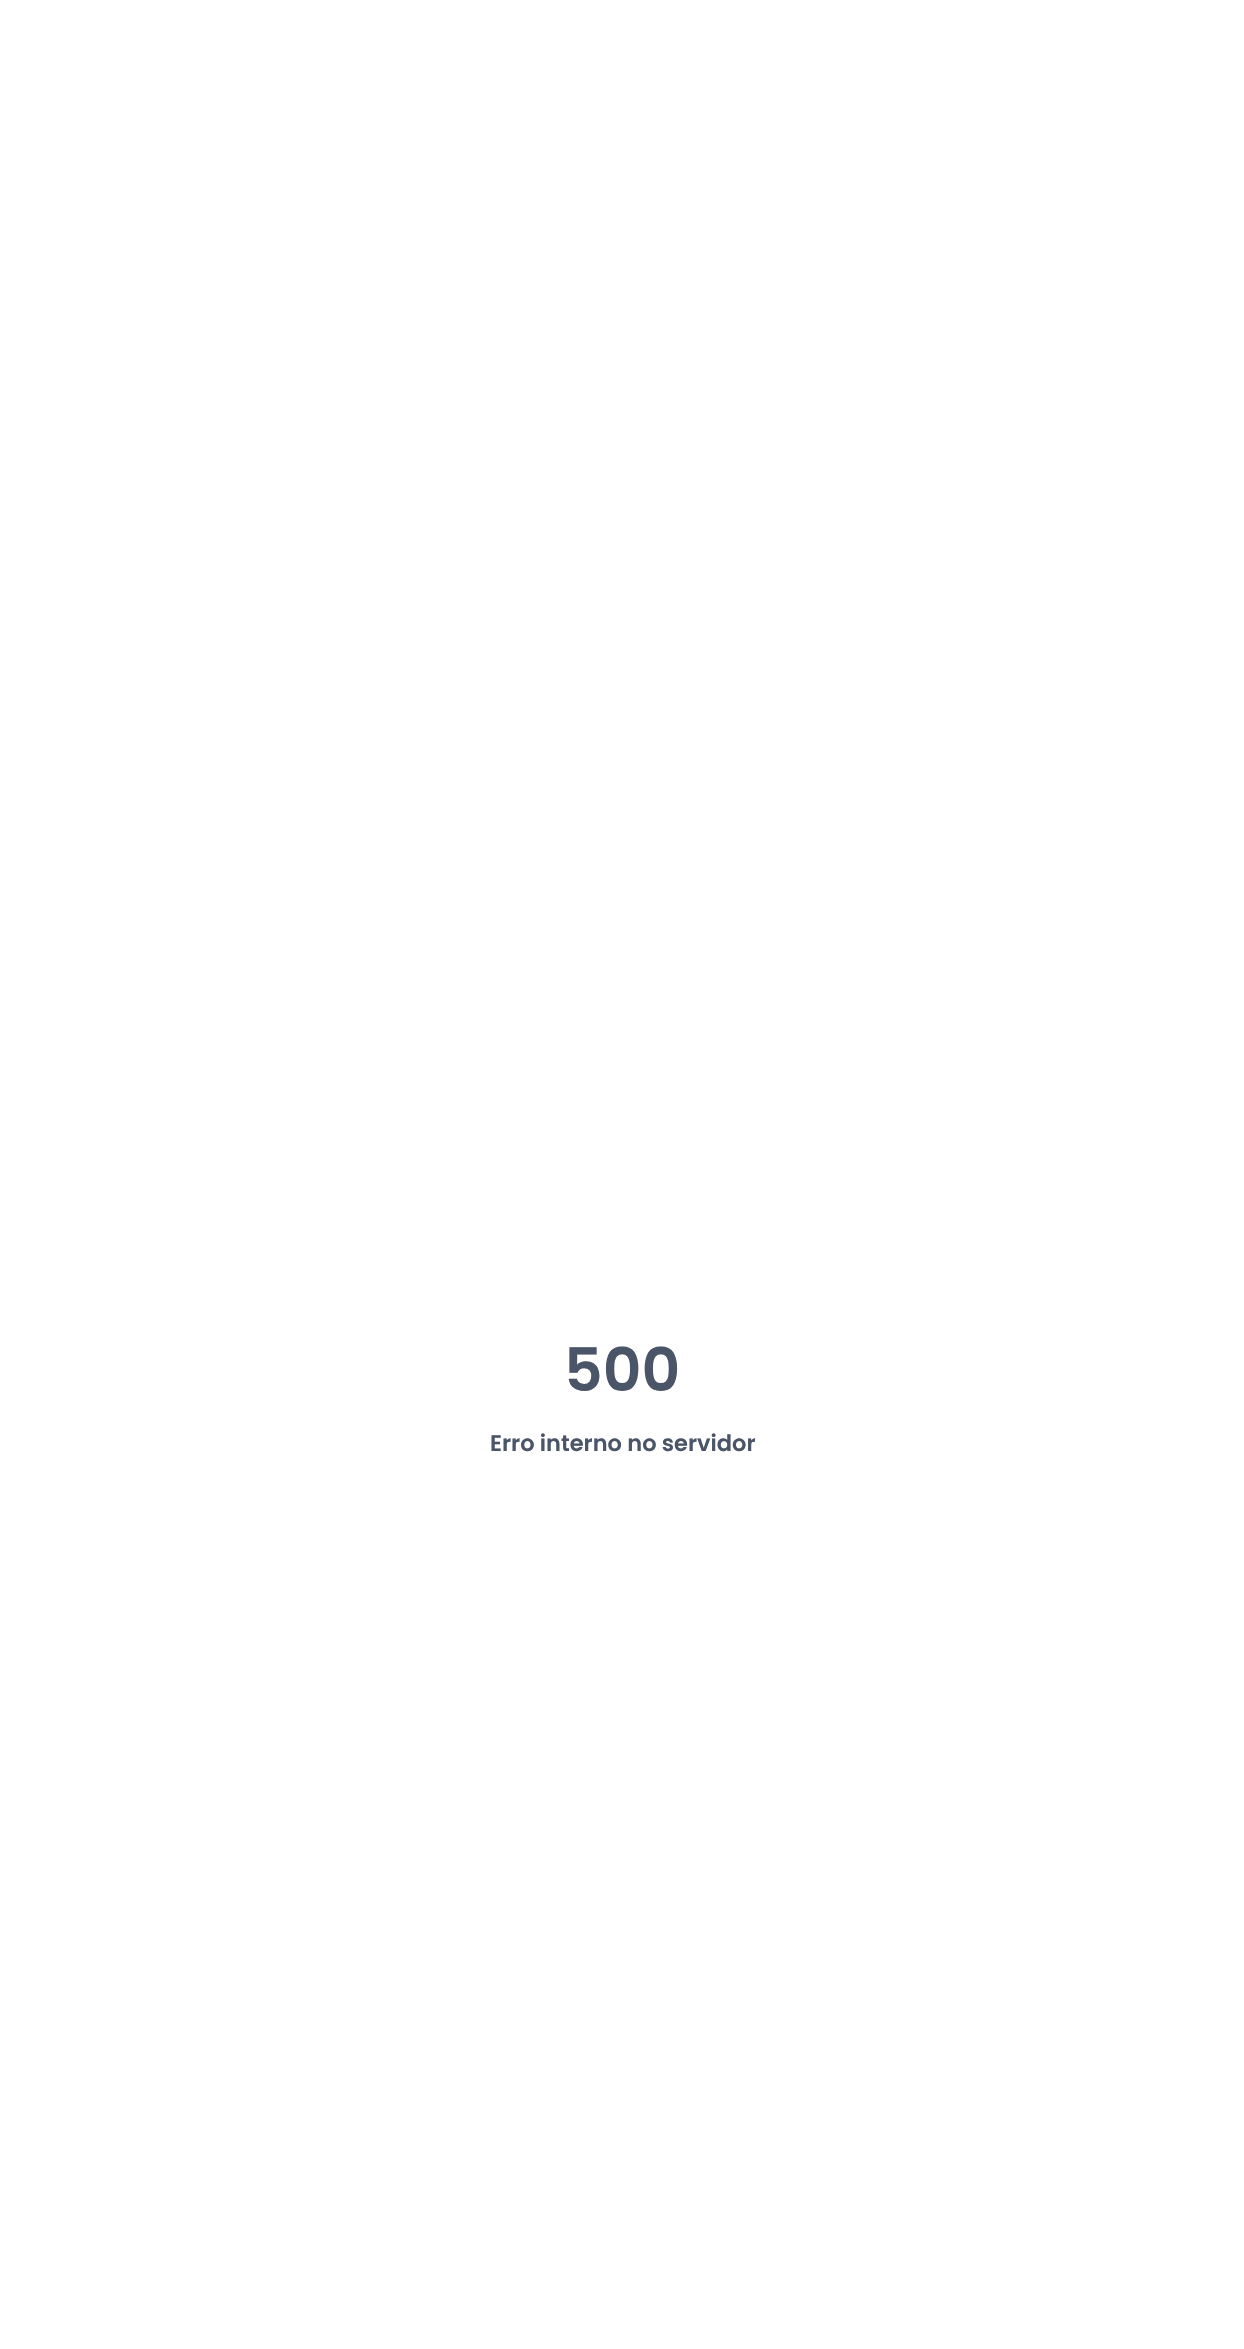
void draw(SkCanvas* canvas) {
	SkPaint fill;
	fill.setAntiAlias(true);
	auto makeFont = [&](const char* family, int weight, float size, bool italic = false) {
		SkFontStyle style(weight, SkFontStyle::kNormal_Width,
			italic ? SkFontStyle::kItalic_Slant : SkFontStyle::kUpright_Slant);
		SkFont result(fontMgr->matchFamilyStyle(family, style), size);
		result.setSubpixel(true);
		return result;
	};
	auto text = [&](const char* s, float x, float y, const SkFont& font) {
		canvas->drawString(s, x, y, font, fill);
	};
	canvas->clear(0xFFFFFFFF);
	auto font1 = makeFont("Poppins", 600, 60);
	fill.setColor(0xFF4A5568);
	text("500", 564, 1391, font1);
	auto font2 = makeFont("Poppins", 600, 22.5f);
	text("Erro interno no servidor", 490, 1451, font2);
}
